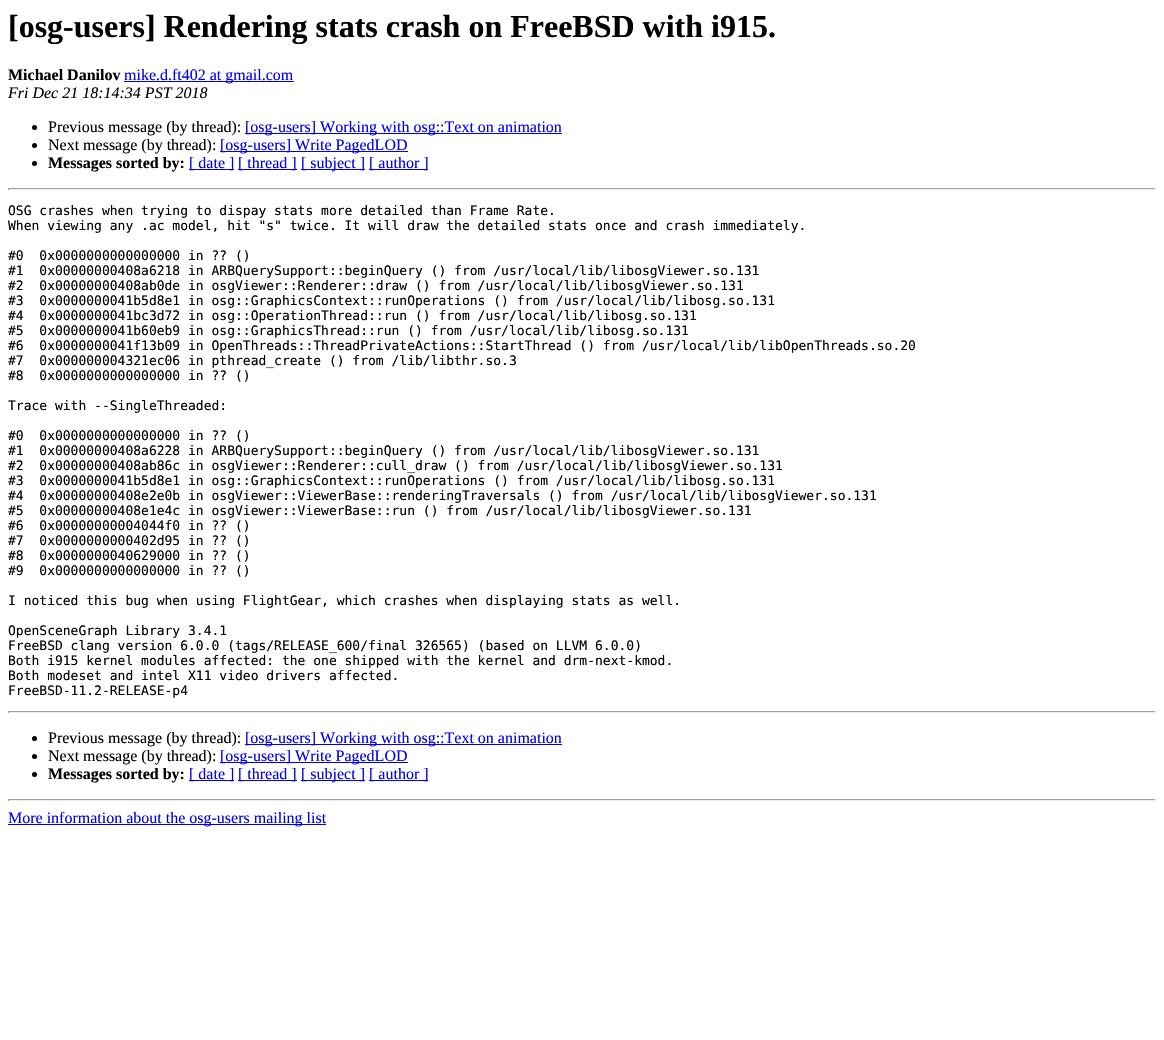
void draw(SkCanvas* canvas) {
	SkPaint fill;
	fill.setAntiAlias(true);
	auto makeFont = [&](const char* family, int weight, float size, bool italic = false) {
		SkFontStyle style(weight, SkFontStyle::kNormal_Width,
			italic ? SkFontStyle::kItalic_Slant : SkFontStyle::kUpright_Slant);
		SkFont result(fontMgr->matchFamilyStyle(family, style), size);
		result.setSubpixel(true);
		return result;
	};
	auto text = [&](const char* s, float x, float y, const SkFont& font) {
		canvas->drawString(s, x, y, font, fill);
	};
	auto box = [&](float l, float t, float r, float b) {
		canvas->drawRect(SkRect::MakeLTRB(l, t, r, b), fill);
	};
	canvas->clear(0xFFFFFFFF);
	fill.setColor(0xFF0000EE);
	box(124, 81, 294, 82);
	fill.setColor(0xFF000000);
	canvas->drawCircle(34.5f, 127.5f, 2.5f, fill);
	fill.setColor(0xFF0000EE);
	box(245, 133, 562, 134);
	fill.setColor(0xFF000000);
	canvas->drawCircle(34.5f, 145.5f, 2.5f, fill);
	fill.setColor(0xFF0000EE);
	box(220, 151, 408, 152);
	fill.setColor(0xFF000000);
	canvas->drawCircle(34.5f, 163.5f, 2.5f, fill);
	fill.setColor(0xFF0000EE);
	box(189, 169, 234, 170);
	box(238, 169, 297, 170);
	box(301, 169, 365, 170);
	box(369, 169, 428, 170);
	fill.setColor(0xFF9F9F9F);
	box(8, 188, 1156, 189);
	fill.setColor(0xFFEEEEEE);
	box(1155, 188, 1156, 190);
	box(8, 189, 1156, 190);
	fill.setColor(0xFF9F9F9F);
	box(8, 188, 9, 190);
	box(8, 711, 1156, 712);
	fill.setColor(0xFFEEEEEE);
	box(1155, 711, 1156, 713);
	box(8, 712, 1156, 713);
	fill.setColor(0xFF9F9F9F);
	box(8, 711, 9, 713);
	fill.setColor(0xFF000000);
	canvas->drawCircle(34.5f, 738.5f, 2.5f, fill);
	fill.setColor(0xFF0000EE);
	box(245, 744, 562, 745);
	fill.setColor(0xFF000000);
	canvas->drawCircle(34.5f, 756.5f, 2.5f, fill);
	fill.setColor(0xFF0000EE);
	box(220, 762, 408, 763);
	fill.setColor(0xFF000000);
	canvas->drawCircle(34.5f, 774.5f, 2.5f, fill);
	fill.setColor(0xFF0000EE);
	box(189, 780, 234, 781);
	box(238, 780, 297, 781);
	box(301, 780, 365, 781);
	box(369, 780, 428, 781);
	fill.setColor(0xFF9F9F9F);
	box(8, 799, 1156, 800);
	fill.setColor(0xFFEEEEEE);
	box(1155, 799, 1156, 801);
	box(8, 800, 1156, 801);
	fill.setColor(0xFF9F9F9F);
	box(8, 799, 9, 801);
	fill.setColor(0xFF0000EE);
	box(8, 824, 326, 825);
	auto font1 = makeFont("Liberation Serif", 700, 32);
	fill.setColor(0xFF000000);
	text("[osg-users] Rendering stats crash on FreeBSD with i915.", 8, 37, font1);
	auto font2 = makeFont("Liberation Serif", 700, 16);
	text("Michael Danilov", 8, 80, font2);
	auto font3 = makeFont("Liberation Serif", 400, 16);
	fill.setColor(0xFF0000EE);
	text("mike.d.ft402 at gmail.com", 124, 80, font3);
	auto font4 = makeFont("Liberation Serif", 400, 16, true);
	fill.setColor(0xFF000000);
	text("Fri Dec 21 18:14:34 PST 2018", 8, 98, font4);
	text("Previous message (by thread):", 48, 132, font3);
	fill.setColor(0xFF0000EE);
	text("[osg-users] Working with osg::Text on animation", 245, 132, font3);
	fill.setColor(0xFF000000);
	text("Next message (by thread):", 48, 150, font3);
	fill.setColor(0xFF0000EE);
	text("[osg-users] Write PagedLOD", 220, 150, font3);
	fill.setColor(0xFF000000);
	text("Messages sorted by:", 48, 168, font2);
	fill.setColor(0xFF0000EE);
	text("[ date ]", 189, 168, font3);
	text("[ thread ]", 238, 168, font3);
	text("[ subject ]", 301, 168, font3);
	text("[ author ]", 369, 168, font3);
	auto font5 = makeFont("DejaVu Sans Mono", 400, 13);
	fill.setColor(0xFF000000);
	text("OSG crashes when trying to dispay stats more detailed than Frame Rate.", 8, 215, font5);
	text("When viewing any .ac model, hit \"s\" twice. It will draw the detailed stats once and crash immediately.", 8, 230, font5);
	text("#0  0x0000000000000000 in ?\077 ()", 8, 260, font5);
	text("#1  0x00000000408a6218 in ARBQuerySupport::beginQuery () from /usr/local/lib/libosgViewer.so.131", 8, 275, font5);
	text("#2  0x00000000408ab0de in osgViewer::Renderer::draw () from /usr/local/lib/libosgViewer.so.131", 8, 290, font5);
	text("#3  0x0000000041b5d8e1 in osg::GraphicsContext::runOperations () from /usr/local/lib/libosg.so.131", 8, 305, font5);
	text("#4  0x0000000041bc3d72 in osg::OperationThread::run () from /usr/local/lib/libosg.so.131", 8, 320, font5);
	text("#5  0x0000000041b60eb9 in osg::GraphicsThread::run () from /usr/local/lib/libosg.so.131", 8, 335, font5);
	text("#6  0x0000000041f13b09 in OpenThreads::ThreadPrivateActions::StartThread () from /usr/local/lib/libOpenThreads.so.20", 8, 350, font5);
	text("#7  0x000000004321ec06 in pthread_create () from /lib/libthr.so.3", 8, 365, font5);
	text("#8  0x0000000000000000 in ?\077 ()", 8, 380, font5);
	text("Trace with --SingleThreaded:", 8, 410, font5);
	text("#0  0x0000000000000000 in ?\077 ()", 8, 440, font5);
	text("#1  0x00000000408a6228 in ARBQuerySupport::beginQuery () from /usr/local/lib/libosgViewer.so.131", 8, 455, font5);
	text("#2  0x00000000408ab86c in osgViewer::Renderer::cull_draw () from /usr/local/lib/libosgViewer.so.131", 8, 470, font5);
	text("#3  0x0000000041b5d8e1 in osg::GraphicsContext::runOperations () from /usr/local/lib/libosg.so.131", 8, 485, font5);
	text("#4  0x00000000408e2e0b in osgViewer::ViewerBase::renderingTraversals () from /usr/local/lib/libosgViewer.so.131", 8, 500, font5);
	text("#5  0x00000000408e1e4c in osgViewer::ViewerBase::run () from /usr/local/lib/libosgViewer.so.131", 8, 515, font5);
	text("#6  0x00000000004044f0 in ?\077 ()", 8, 530, font5);
	text("#7  0x0000000000402d95 in ?\077 ()", 8, 545, font5);
	text("#8  0x0000000040629000 in ?\077 ()", 8, 560, font5);
	text("#9  0x0000000000000000 in ?\077 ()", 8, 575, font5);
	text("I noticed this bug when using FlightGear, which crashes when displaying stats as well.", 8, 605, font5);
	text("OpenSceneGraph Library 3.4.1", 8, 635, font5);
	text("FreeBSD clang version 6.0.0 (tags/RELEASE_600/final 326565) (based on LLVM 6.0.0)", 8, 650, font5);
	text("Both i915 kernel modules affected: the one shipped with the kernel and drm-next-kmod.", 8, 665, font5);
	text("Both modeset and intel X11 video drivers affected.", 8, 680, font5);
	text("FreeBSD-11.2-RELEASE-p4", 8, 695, font5);
	text("Previous message (by thread):", 48, 743, font3);
	fill.setColor(0xFF0000EE);
	text("[osg-users] Working with osg::Text on animation", 245, 743, font3);
	fill.setColor(0xFF000000);
	text("Next message (by thread):", 48, 761, font3);
	fill.setColor(0xFF0000EE);
	text("[osg-users] Write PagedLOD", 220, 761, font3);
	fill.setColor(0xFF000000);
	text("Messages sorted by:", 48, 779, font2);
	fill.setColor(0xFF0000EE);
	text("[ date ]", 189, 779, font3);
	text("[ thread ]", 238, 779, font3);
	text("[ subject ]", 301, 779, font3);
	text("[ author ]", 369, 779, font3);
	text("More information about the osg-users mailing list", 8, 823, font3);
}
